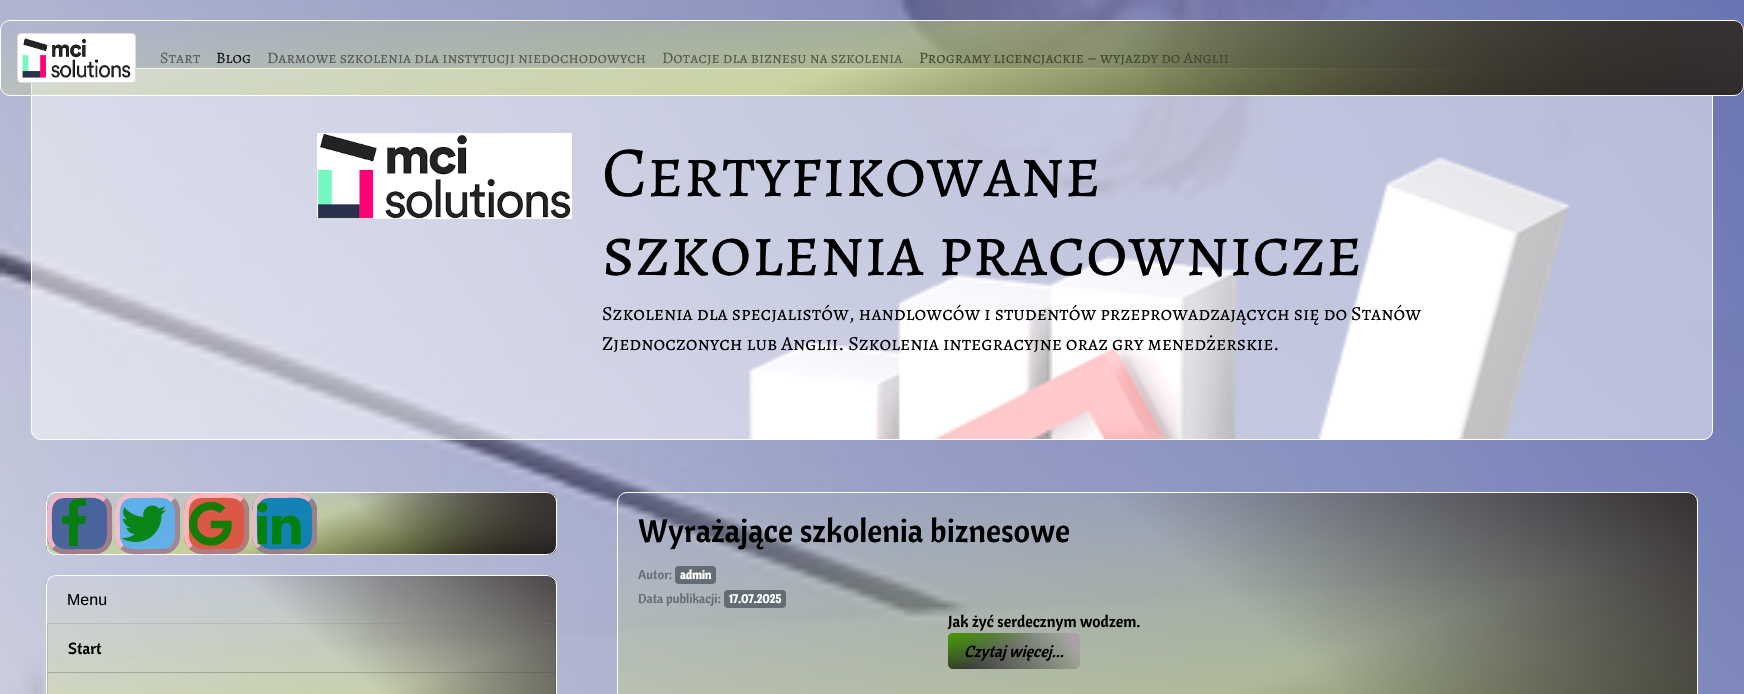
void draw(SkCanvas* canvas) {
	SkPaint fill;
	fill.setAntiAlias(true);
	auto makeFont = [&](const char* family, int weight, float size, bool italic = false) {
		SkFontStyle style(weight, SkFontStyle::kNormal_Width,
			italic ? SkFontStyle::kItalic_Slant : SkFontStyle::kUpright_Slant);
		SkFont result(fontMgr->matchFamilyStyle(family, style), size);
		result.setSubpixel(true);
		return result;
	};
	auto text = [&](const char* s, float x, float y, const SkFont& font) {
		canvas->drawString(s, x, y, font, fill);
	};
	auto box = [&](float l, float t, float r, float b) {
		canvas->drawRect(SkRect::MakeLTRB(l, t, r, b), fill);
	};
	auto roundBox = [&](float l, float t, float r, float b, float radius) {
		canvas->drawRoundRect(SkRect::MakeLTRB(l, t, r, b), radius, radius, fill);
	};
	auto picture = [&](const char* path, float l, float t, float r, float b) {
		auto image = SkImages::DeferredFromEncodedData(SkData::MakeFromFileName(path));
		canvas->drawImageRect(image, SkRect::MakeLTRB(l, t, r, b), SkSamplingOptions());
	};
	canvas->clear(0xFFFFFFFF);
	picture("image0.png", 0, 0, 1744, 694);
	picture("image2.png", 31, 68, 1713, 440);
	fill.setStyle(SkPaint::kStroke_Style);
	fill.setStrokeWidth(1);
	fill.setColor(0xFFFFFFFF);
	canvas->drawRoundRect(SkRect::MakeLTRB(31.5f, 68.5f, 1712.5f, 439.5f), 9.5f, 9.5f, fill);
	canvas->save();
	canvas->clipPath(SkPathBuilder().moveTo(10, 20).lineTo(1734, 20).cubicTo(1739.5f, 20, 1744, 24.5f, 1744, 30).lineTo(1744, 86).cubicTo(1744, 91.5f, 1739.5f, 96, 1734, 96).lineTo(10, 96).cubicTo(4.5f, 96, 0, 91.5f, 0, 86).lineTo(0, 30).cubicTo(0, 24.5f, 4.5f, 20, 10, 20).close().detach(), true);
	fill.setStyle(SkPaint::kFill_Style);
	{
		const SkColor colors[] = {0xFFCCDB6B, 0x00CCDB6B};
		const float stops[] = {0, 1};
		const SkPoint ends[] = {{899, 229}, {845, -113}};
		fill.setShader(SkGradientShader::MakeLinear(ends, colors, stops, 2, SkTileMode::kClamp));
		fill.setAlpha(255);
	}
	box(1, 21, 1743, 95);
	{
		const SkColor colors[] = {0xFF030203, 0x00030203};
		const float stops[] = {0, 0.5f};
		const SkPoint ends[] = {{976, 359}, {768, -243}};
		fill.setShader(SkGradientShader::MakeLinear(ends, colors, stops, 2, SkTileMode::kClamp));
		fill.setAlpha(255);
	}
	box(787, 21, 1743, 95);
	{
		const SkColor colors[] = {0xFF363032, 0x00363032};
		const float stops[] = {0, 0.37f};
		const SkPoint ends[] = {{1250, -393}, {494, 509}};
		fill.setShader(SkGradientShader::MakeLinear(ends, colors, stops, 2, SkTileMode::kClamp));
		fill.setAlpha(255);
	}
	box(1081, 21, 1743, 95);
	canvas->restore();
	fill.setStyle(SkPaint::kStroke_Style);
	fill.setShader(nullptr);
	fill.setColor(0xFFFFFFFF);
	canvas->drawRoundRect(SkRect::MakeLTRB(0.5f, 20.5f, 1743.5f, 95.5f), 9.5f, 9.5f, fill);
	fill.setStyle(SkPaint::kFill_Style);
	canvas->drawRoundRect(SkRect::MakeLTRB(17.5f, 33.5f, 135.5f, 82.5f), 3.5f, 3.5f, fill);
	fill.setStyle(SkPaint::kStroke_Style);
	fill.setColor(0xFFDDDDDD);
	canvas->drawRoundRect(SkRect::MakeLTRB(17.5f, 33.5f, 135.5f, 82.5f), 3.5f, 3.5f, fill);
	picture("image1.png", 22, 38, 131, 78);
	picture("image3.png", 317, 133, 572, 219);
	fill.setColor(0xFFFFFFFF);
	canvas->drawRoundRect(SkRect::MakeLTRB(46.5f, 492.5f, 556.5f, 554.5f), 9.5f, 9.5f, fill);
	fill.setStyle(SkPaint::kFill_Style);
	fill.setColor(0xE63B5998);
	canvas->drawPath(SkPathBuilder().moveTo(65, 493).lineTo(94, 493).cubicTo(104, 493, 112, 501, 112, 510).lineTo(112, 537).cubicTo(112, 546, 104, 554, 94, 554).lineTo(65, 554).cubicTo(55, 554, 47, 546, 47, 537).lineTo(47, 510).cubicTo(47, 501, 55, 493, 65, 493).close().detach(), fill);
	fill.setStyle(SkPaint::kStroke_Style);
	fill.setStrokeWidth(5);
	fill.setColor(0xE6AA8087);
	canvas->drawPath(SkPathBuilder().moveTo(105, 500).cubicTo(110.5f, 505, 109.5f, 512, 109.5f, 519).cubicTo(109.5f, 531.5f, 113, 550, 95.5f, 551.5f).lineTo(79.5f, 551.5f).cubicTo(71, 551.5f, 61, 553.5f, 54, 547).detach(), fill);
	fill.setColor(0xE6FFC0CB);
	canvas->drawPath(SkPathBuilder().moveTo(54, 547).cubicTo(48.5f, 542, 49.5f, 535, 49.5f, 528).cubicTo(49.5f, 515.5f, 46, 497, 63.5f, 495.5f).lineTo(79.5f, 495.5f).cubicTo(88, 495.5f, 98, 493.5f, 105, 500).detach(), fill);
	fill.setStyle(SkPaint::kFill_Style);
	fill.setColor(0xE6008000);
	canvas->drawPath(SkPathBuilder().moveTo(86, 499).lineTo(86, 506).cubicTo(77, 506, 78, 506, 78, 516).lineTo(86, 516).lineTo(85, 524).lineTo(78, 524).lineTo(78, 546).lineTo(69, 546).lineTo(69, 524).lineTo(62, 524).lineTo(62, 516).lineTo(69, 516).lineTo(69, 507).cubicTo(70, 498, 79, 498, 86, 499).close().detach(), fill);
	fill.setColor(0xE655ACEE);
	canvas->drawPath(SkPathBuilder().moveTo(133, 493).lineTo(162, 493).cubicTo(172, 493, 180, 501, 180, 510).lineTo(180, 537).cubicTo(180, 546, 172, 554, 162, 554).lineTo(133, 554).cubicTo(123, 554, 115, 546, 115, 537).lineTo(115, 510).cubicTo(115, 501, 123, 493, 133, 493).close().detach(), fill);
	fill.setStyle(SkPaint::kStroke_Style);
	fill.setColor(0xE6AA8087);
	canvas->drawPath(SkPathBuilder().moveTo(173, 500).cubicTo(178.5f, 505, 177.5f, 512, 177.5f, 519).cubicTo(177.5f, 531.5f, 181, 550, 163.5f, 551.5f).lineTo(147.5f, 551.5f).cubicTo(139, 551.5f, 129, 553.5f, 122, 547).detach(), fill);
	fill.setColor(0xE6FFC0CB);
	canvas->drawPath(SkPathBuilder().moveTo(122, 547).cubicTo(116.5f, 542, 117.5f, 535, 117.5f, 528).cubicTo(117.5f, 515.5f, 114, 497, 131.5f, 495.5f).lineTo(147.5f, 495.5f).cubicTo(156, 495.5f, 166, 493.5f, 173, 500).detach(), fill);
	picture("image4.png", 121, 505, 166, 542);
	fill.setStyle(SkPaint::kFill_Style);
	fill.setColor(0xE6DD4B39);
	canvas->drawPath(SkPathBuilder().moveTo(202, 493).lineTo(231, 493).cubicTo(241, 493, 249, 501, 249, 510).lineTo(249, 537).cubicTo(249, 546, 241, 554, 231, 554).lineTo(202, 554).cubicTo(192, 554, 184, 546, 184, 537).lineTo(184, 510).cubicTo(184, 501, 192, 493, 202, 493).close().detach(), fill);
	fill.setStyle(SkPaint::kStroke_Style);
	fill.setColor(0xE6AA8087);
	canvas->drawPath(SkPathBuilder().moveTo(242, 500).cubicTo(247.5f, 505, 246.5f, 512, 246.5f, 519).cubicTo(246.5f, 531.5f, 250, 550, 232.5f, 551.5f).lineTo(216.5f, 551.5f).cubicTo(208, 551.5f, 198, 553.5f, 191, 547).detach(), fill);
	fill.setColor(0xE6FFC0CB);
	canvas->drawPath(SkPathBuilder().moveTo(191, 547).cubicTo(185.5f, 542, 186.5f, 535, 186.5f, 528).cubicTo(186.5f, 515.5f, 183, 497, 200.5f, 495.5f).lineTo(216.5f, 495.5f).cubicTo(225, 495.5f, 235, 493.5f, 242, 500).detach(), fill);
	picture("image5.png", 189, 501, 232, 546);
	fill.setStyle(SkPaint::kFill_Style);
	fill.setColor(0xE6007BB5);
	canvas->drawPath(SkPathBuilder().moveTo(270, 493).lineTo(299, 493).cubicTo(309, 493, 317, 501, 317, 510).lineTo(317, 537).cubicTo(317, 546, 309, 554, 299, 554).lineTo(270, 554).cubicTo(260, 554, 252, 546, 252, 537).lineTo(252, 510).cubicTo(252, 501, 260, 493, 270, 493).close().detach(), fill);
	fill.setStyle(SkPaint::kStroke_Style);
	fill.setColor(0xE6AA8087);
	canvas->drawPath(SkPathBuilder().moveTo(310, 500).cubicTo(315.5f, 505, 314.5f, 512, 314.5f, 519).cubicTo(314.5f, 531.5f, 318, 550, 300.5f, 551.5f).lineTo(284.5f, 551.5f).cubicTo(276, 551.5f, 266, 553.5f, 259, 547).detach(), fill);
	fill.setColor(0xE6FFC0CB);
	canvas->drawPath(SkPathBuilder().moveTo(259, 547).cubicTo(253.5f, 542, 254.5f, 535, 254.5f, 528).cubicTo(254.5f, 515.5f, 251, 497, 268.5f, 495.5f).lineTo(284.5f, 495.5f).cubicTo(293, 495.5f, 303, 493.5f, 310, 500).detach(), fill);
	picture("image6.png", 257, 502, 301, 545);
	fill.setStrokeWidth(1);
	fill.setColor(0xFFFFFFFF);
	canvas->drawRoundRect(SkRect::MakeLTRB(46.5f, 575.5f, 556.5f, 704.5f), 9.5f, 9.5f, fill);
	fill.setStyle(SkPaint::kFill_Style);
	fill.setColor(0x1AFFFFFF);
	box(47, 623, 556, 673);
	fill.setStyle(SkPaint::kStroke_Style);
	fill.setColor(0x1F000000);
	canvas->drawRect(SkRect::MakeLTRB(47.5f, 623.5f, 555.5f, 672.5f), fill);
	fill.setStyle(SkPaint::kFill_Style);
	fill.setColor(0x1AFFFFFF);
	roundBox(47, 576, 556, 624, 5);
	box(47, 672, 556, 694);
	fill.setStyle(SkPaint::kStroke_Style);
	fill.setColor(0x1F000000);
	canvas->drawRect(SkRect::MakeLTRB(47.5f, 672.5f, 555.5f, 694.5f), fill);
	fill.setColor(0xFFFFFFFF);
	canvas->drawRoundRect(SkRect::MakeLTRB(617.5f, 492.5f, 1697.5f, 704.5f), 9.5f, 9.5f, fill);
	fill.setStyle(SkPaint::kFill_Style);
	fill.setColor(0xFF636C72);
	roundBox(675, 566, 716, 584, 4);
	roundBox(724, 590, 786, 608, 4);
	auto font1 = makeFont("Alegreya SC", 400, 16);
	fill.setColor(0xFF585C5E);
	text("Start", 160, 63, font1);
	fill.setColor(0xFF121212);
	text("Blog", 216, 63, font1);
	fill.setColor(0xFF575B56);
	text("Darmowe szkolenia dla instytucji niedochodowych", 267, 63, font1);
	fill.setColor(0xFF555B4C);
	text("Dotacje dla biznesu na szkolenia", 662, 63, font1);
	fill.setColor(0xFF434735);
	text("Programy licencjackie – wyjazdy do Anglii", 919, 63, font1);
	auto font2 = makeFont("Alegreya SC", 400, 72);
	fill.setColor(0xFF000000);
	text("Certyfikowane", 602, 196, font2);
	text("szkolenia pracownicze", 602, 275, font2);
	auto font3 = makeFont("Alegreya SC", 400, 20);
	text("Szkolenia dla specjalistów, handlowców i studentów przeprowadzających się do Stanów", 602, 320, font3);
	text("Zjednoczonych lub Anglii. Szkolenia integracyjne oraz gry menedżerskie.", 602, 350, font3);
	auto font4 = makeFont("Liberation Sans", 400, 16);
	text("Menu", 67, 605, font4);
	auto font5 = makeFont("Cantora One", 400, 16);
	text("Start", 68, 654, font5);
	auto font6 = makeFont("Cantora One", 400, 32);
	text("Wyrażające szkolenia biznesowe", 638, 542, font6);
	auto font7 = makeFont("Cantora One", 400, 12.75f);
	fill.setColor(0xFF636C72);
	text("Autor:", 638, 579, font7);
	auto font8 = makeFont("Cantora One", 700, 12);
	fill.setColor(0xFFFFFFFF);
	text("admin", 680, 579, font8);
	fill.setColor(0xFF636C72);
	text("Data publikacji:", 638, 603, font7);
	fill.setColor(0xFFFFFFFF);
	text("17.07.2025", 729, 603, font8);
	fill.setColor(0xFF000000);
	text("Jak żyć serdecznym wodzem.", 948, 627, font5);
	auto font9 = makeFont("Cantora One", 400, 16, true);
	text("Czytaj więcej...", 964, 657, font9);
}
